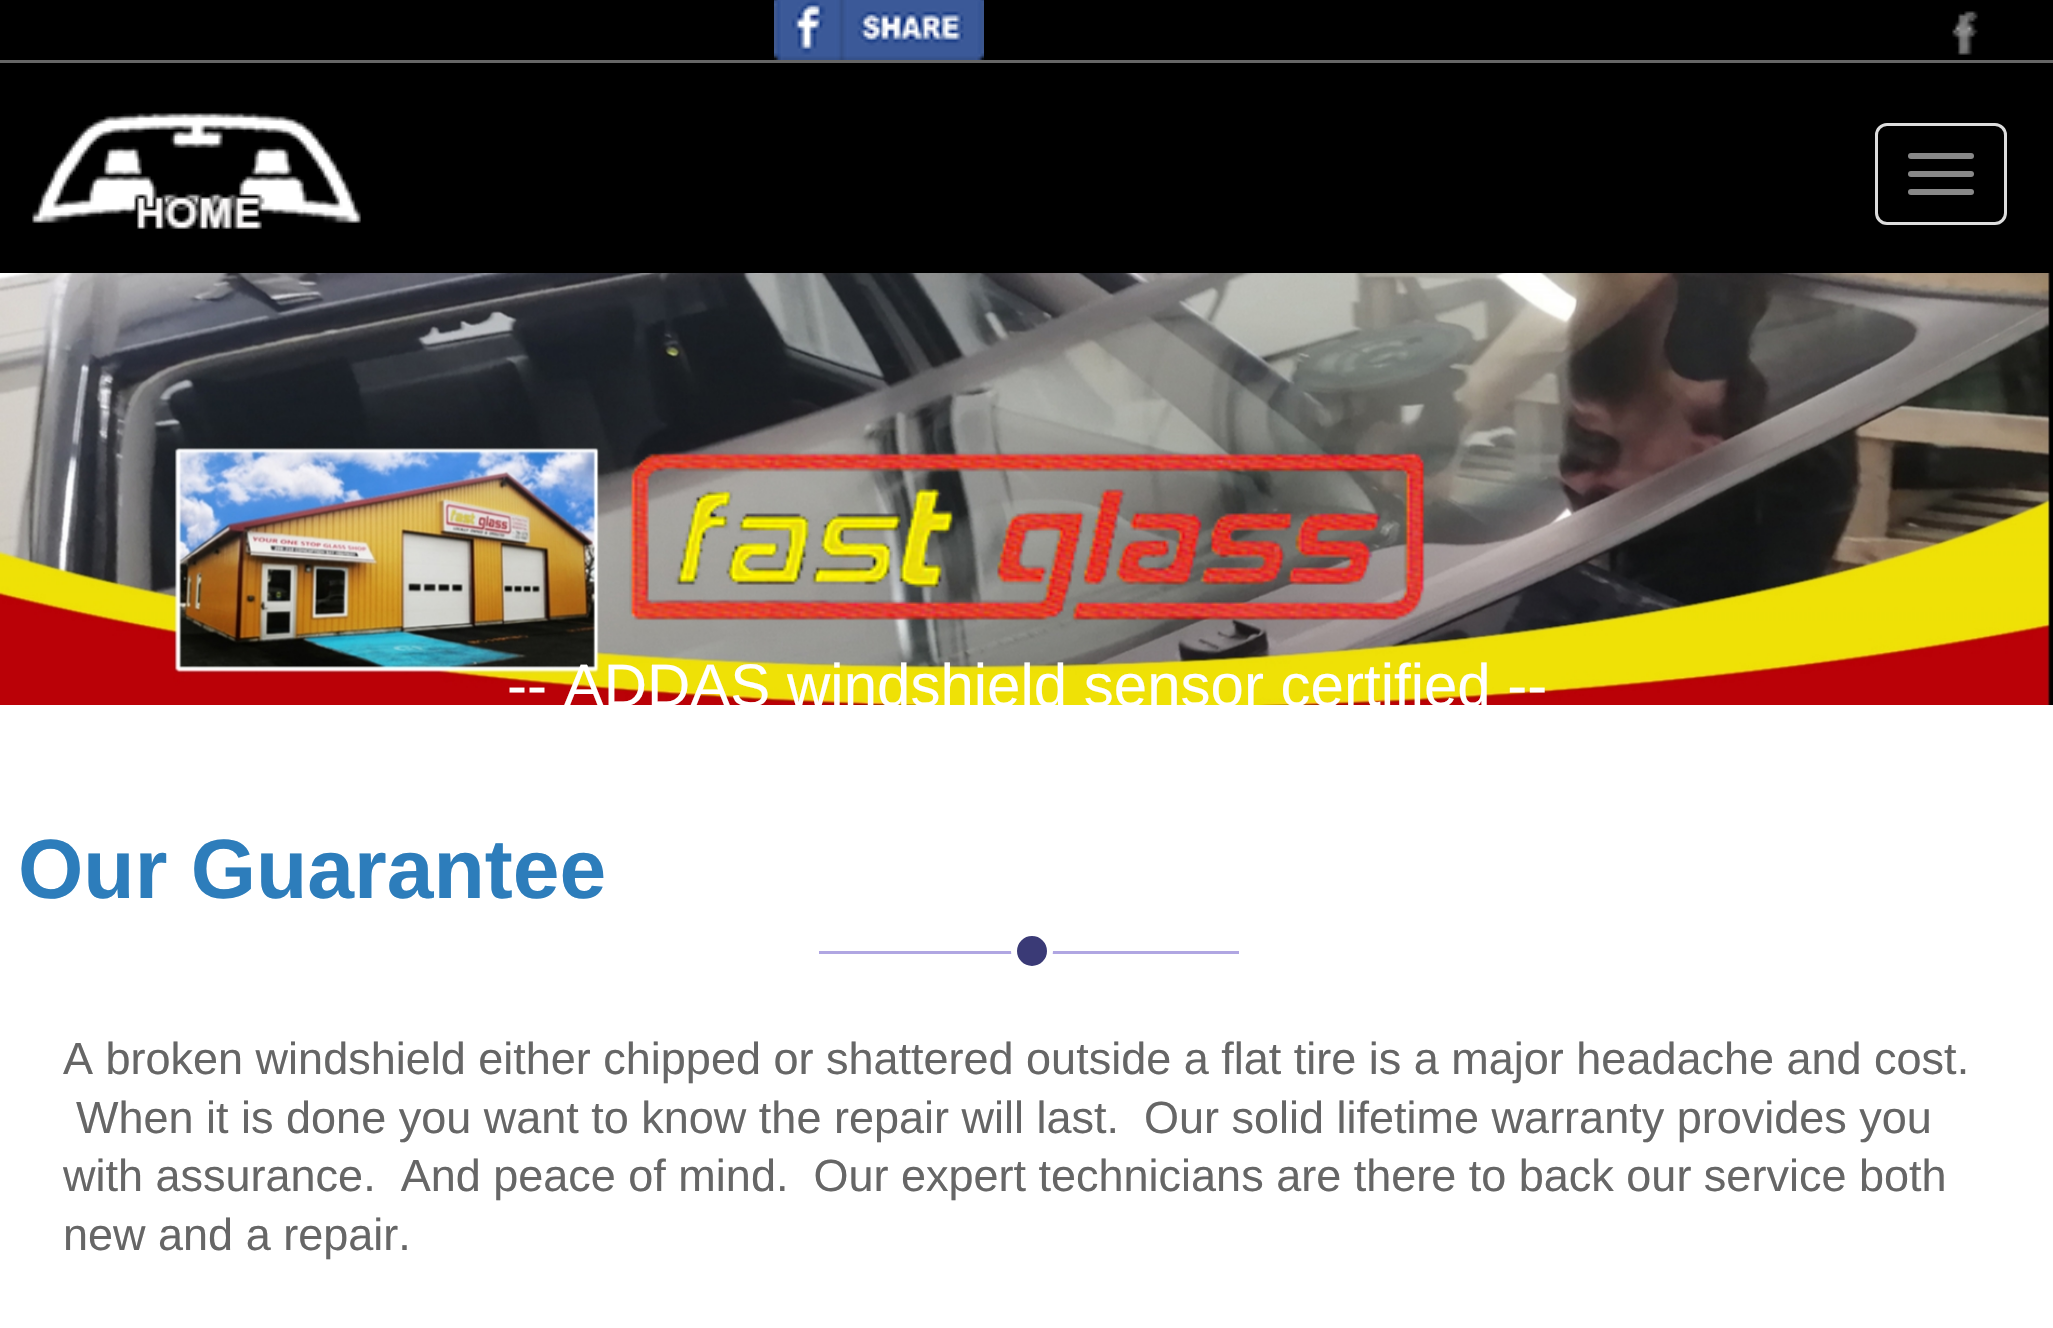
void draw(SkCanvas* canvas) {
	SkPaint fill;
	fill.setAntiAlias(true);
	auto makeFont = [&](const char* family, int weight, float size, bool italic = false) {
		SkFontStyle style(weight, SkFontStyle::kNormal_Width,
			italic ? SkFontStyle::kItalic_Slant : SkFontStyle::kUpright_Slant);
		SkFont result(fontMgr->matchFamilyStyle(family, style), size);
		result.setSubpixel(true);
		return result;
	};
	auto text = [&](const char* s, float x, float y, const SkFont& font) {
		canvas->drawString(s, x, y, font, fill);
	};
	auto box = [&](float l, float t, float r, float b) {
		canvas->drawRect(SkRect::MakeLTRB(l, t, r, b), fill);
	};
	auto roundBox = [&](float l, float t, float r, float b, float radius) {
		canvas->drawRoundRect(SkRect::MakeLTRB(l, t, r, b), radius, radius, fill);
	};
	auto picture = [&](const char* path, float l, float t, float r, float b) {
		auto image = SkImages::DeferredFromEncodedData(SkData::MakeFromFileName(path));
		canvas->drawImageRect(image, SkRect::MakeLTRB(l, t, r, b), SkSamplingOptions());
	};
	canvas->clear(0xFFFFFFFF);
	fill.setColor(0xFF000000);
	box(0, 0, 2053, 273);
	fill.setColor(0xFF666666);
	box(0, 60, 2053, 63);
	picture("image0.png", 774, 0, 984, 60);
	picture("image1.png", 1952, 11, 1978, 55);
	picture("image2.png", 32, 113, 361, 229);
	fill.setStyle(SkPaint::kStroke_Style);
	fill.setStrokeWidth(3);
	fill.setColor(0xFFDDDDDD);
	canvas->drawRoundRect(SkRect::MakeLTRB(1876.5f, 124.5f, 2005.5f, 223.5f), 10.5f, 10.5f, fill);
	fill.setStyle(SkPaint::kFill_Style);
	fill.setColor(0xFF888888);
	roundBox(1908, 153, 1974, 159, 3);
	roundBox(1908, 171, 1974, 177, 3);
	roundBox(1908, 189, 1974, 195, 3);
	picture("image3.png", 0, 273, 2053, 705);
	picture("image4.png", 629, 451, 1425, 621);
	fill.setColor(0xFFB0A6E2);
	box(819, 951, 1239, 954);
	fill.setColor(0xFF3A3A76);
	canvas->drawCircle(1032, 951, 18, fill);
	fill.setStyle(SkPaint::kStroke_Style);
	fill.setStrokeWidth(6);
	fill.setColor(0xFFFFFFFF);
	canvas->drawCircle(1032, 951, 18, fill);
	auto font1 = makeFont("Liberation Sans", 400, 60);
	fill.setStyle(SkPaint::kFill_Style);
	text("-- ADDAS windshield sensor certified --", 507, 706, font1);
	auto font2 = makeFont("Liberation Sans", 700, 84);
	fill.setColor(0xFF2D7DBB);
	text("Our Guarantee", 18, 898, font2);
	auto font3 = makeFont("Liberation Sans", 400, 45);
	fill.setColor(0xFF666666);
	text("A broken windshield either chipped or shattered outside a flat tire is a major headache and cost.", 63, 1074, font3);
	text("When it is done you want to know the repair will last.  Our solid lifetime warranty provides you", 76, 1133, font3);
	text("with assurance.  And peace of mind.  Our expert technicians are there to back our service both", 63, 1191, font3);
	text("new and a repair.", 63, 1250, font3);
}
